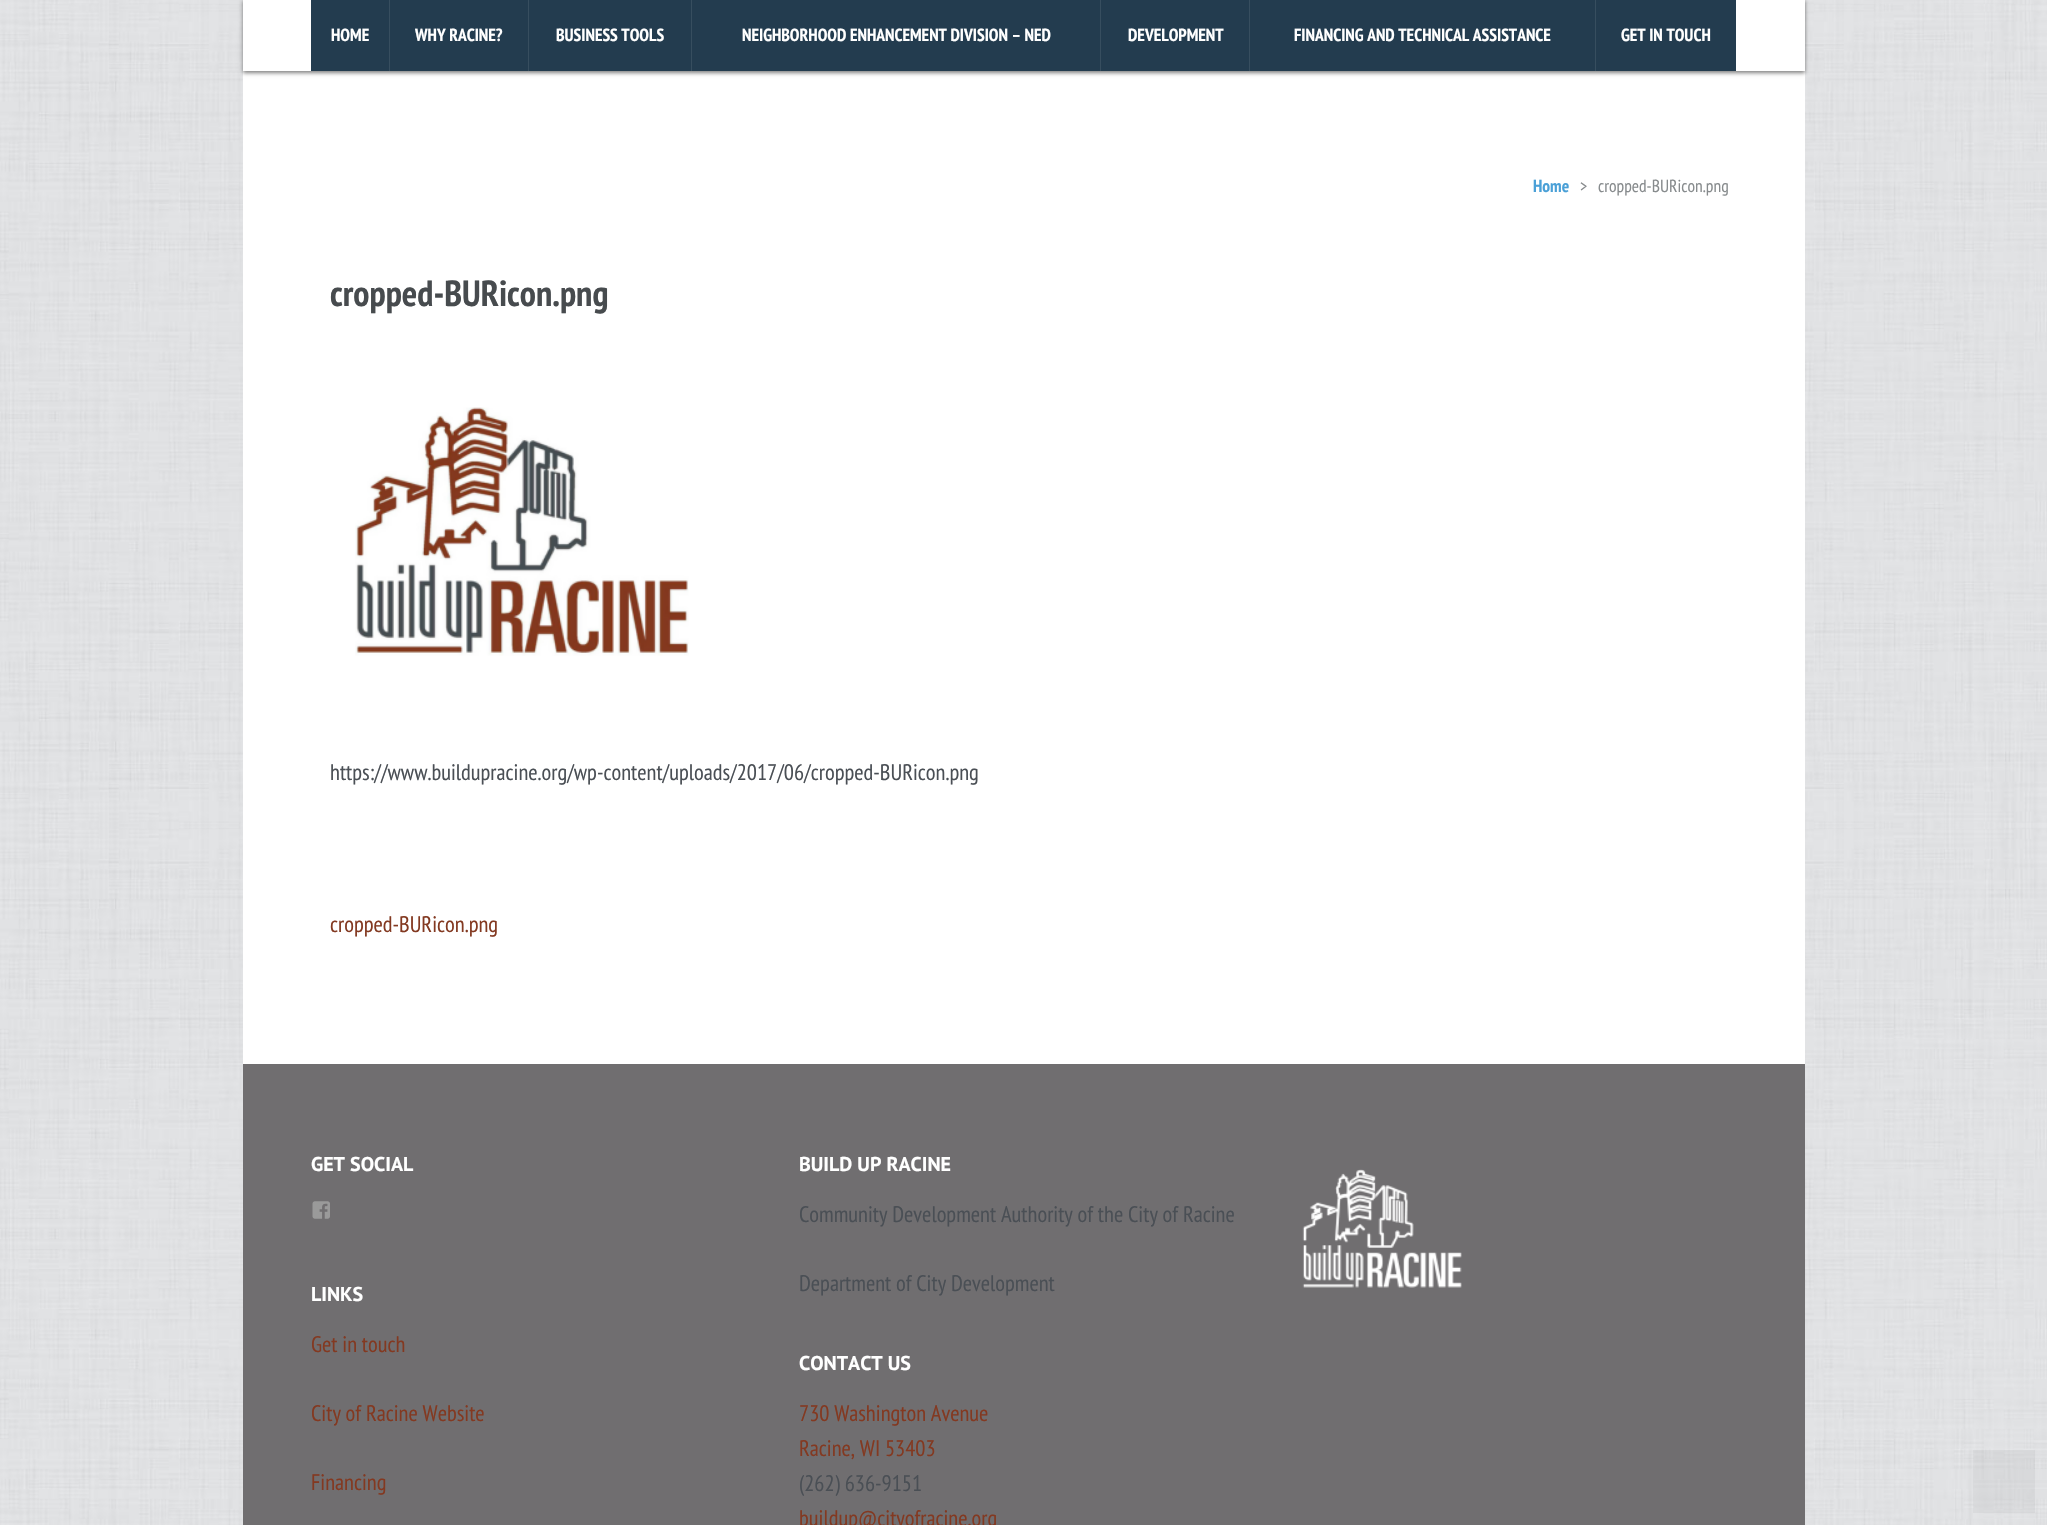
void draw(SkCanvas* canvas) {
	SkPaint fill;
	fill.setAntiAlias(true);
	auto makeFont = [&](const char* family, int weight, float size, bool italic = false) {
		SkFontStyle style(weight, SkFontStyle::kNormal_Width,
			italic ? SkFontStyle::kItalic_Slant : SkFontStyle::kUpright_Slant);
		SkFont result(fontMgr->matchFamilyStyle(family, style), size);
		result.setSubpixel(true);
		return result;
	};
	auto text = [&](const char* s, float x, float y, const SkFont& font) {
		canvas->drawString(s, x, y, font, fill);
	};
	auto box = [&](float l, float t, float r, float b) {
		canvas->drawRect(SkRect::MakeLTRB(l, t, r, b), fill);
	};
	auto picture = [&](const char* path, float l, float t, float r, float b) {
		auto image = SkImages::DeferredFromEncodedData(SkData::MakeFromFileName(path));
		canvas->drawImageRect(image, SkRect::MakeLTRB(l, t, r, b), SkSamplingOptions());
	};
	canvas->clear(0xFFFFFFFF);
	picture("image0.png", 0, 0, 2047, 1525);
	fill.setColor(0xFFFFFFFF);
	box(243, 71, 1805, 1064);
	fill.setColor(0x80000000);
	fill.setMaskFilter(SkMaskFilter::MakeBlur(kNormal_SkBlurStyle, 2));
	canvas->drawRect(SkRect::MakeLTRB(243, 1, 1805, 73), fill);
	fill.setMaskFilter(nullptr);
	fill.setColor(0xFFFFFFFF);
	box(243, 0, 1805, 71);
	fill.setColor(0xFF233C4F);
	box(311, 0, 1736, 71);
	fill.setColor(0xFF374E5F);
	box(389, 0, 390, 71);
	box(528, 0, 529, 71);
	box(691, 0, 692, 71);
	box(1100, 0, 1101, 71);
	box(1249, 0, 1250, 71);
	box(1595, 0, 1596, 71);
	picture("image1.png", 355, 407, 689, 656);
	fill.setColor(0xFF706E70);
	box(243, 1064, 1805, 1525);
	picture("image2.png", 312, 1201, 330, 1219);
	picture("image3.png", 1302, 1169, 1462, 1288);
	fill.setColor(0x0A000000);
	box(1973, 1450, 2035, 1513);
	auto font1 = makeFont("PT Sans Narrow", 700, 17.5f);
	fill.setColor(0xFFFFFFFF);
	text("HOME", 331, 41, font1);
	text("WHY RACINE?", 415, 41, font1);
	text("BUSINESS TOOLS", 556, 41, font1);
	text("NEIGHBORHOOD ENHANCEMENT DIVISION – NED", 742, 41, font1);
	text("DEVELOPMENT", 1128, 41, font1);
	text("FINANCING AND TECHNICAL ASSISTANCE", 1294, 41, font1);
	text("GET IN TOUCH", 1621, 41, font1);
	fill.setColor(0xFF4AA0D7);
	text("Home", 1533, 192, font1);
	auto font2 = makeFont("PT Sans Narrow", 400, 17.5f);
	fill.setColor(0xFF878B8D);
	text(">", 1580, 192, font2);
	text("cropped-BURicon.png", 1598, 192, font2);
	auto font3 = makeFont("PT Sans Narrow", 700, 36.25f);
	fill.setColor(0xFF474B4E);
	text("cropped-BURicon.png", 330, 306, font3);
	auto font4 = makeFont("PT Sans Narrow", 400, 22.5f);
	fill.setColor(0xFF4A4F55);
	text("https://www.buildupracine.org/wp-content/uploads/2017/06/cropped-BURicon.png", 330, 780, font4);
	fill.setColor(0xFF833921);
	text("cropped-BURicon.png", 330, 932, font4);
	auto font5 = makeFont("PT Sans", 700, 20);
	fill.setColor(0xFFFFFFFF);
	text("GET SOCIAL", 311, 1171, font5);
	text("LINKS", 311, 1301, font5);
	fill.setColor(0xFF833921);
	text("Get in touch", 311, 1352, font4);
	text("City of Racine Website", 311, 1421, font4);
	text("Financing", 311, 1490, font4);
	fill.setColor(0xFFFFFFFF);
	text("BUILD UP RACINE", 799, 1171, font5);
	fill.setColor(0xFF4A4F55);
	text("Community Development Authority of the City of Racine", 799, 1222, font4);
	text("Department of City Development", 799, 1291, font4);
	fill.setColor(0xFFFFFFFF);
	text("CONTACT US", 799, 1370, font5);
	fill.setColor(0xFF833921);
	text("730 Washington Avenue", 799, 1421, font4);
	text("Racine, WI 53403", 799, 1456, font4);
	fill.setColor(0xFF4A4F55);
	text("(262) 636-9151", 799, 1491, font4);
	fill.setColor(0xFF833921);
	text("buildup@cityofracine.org", 799, 1526, font4);
}
